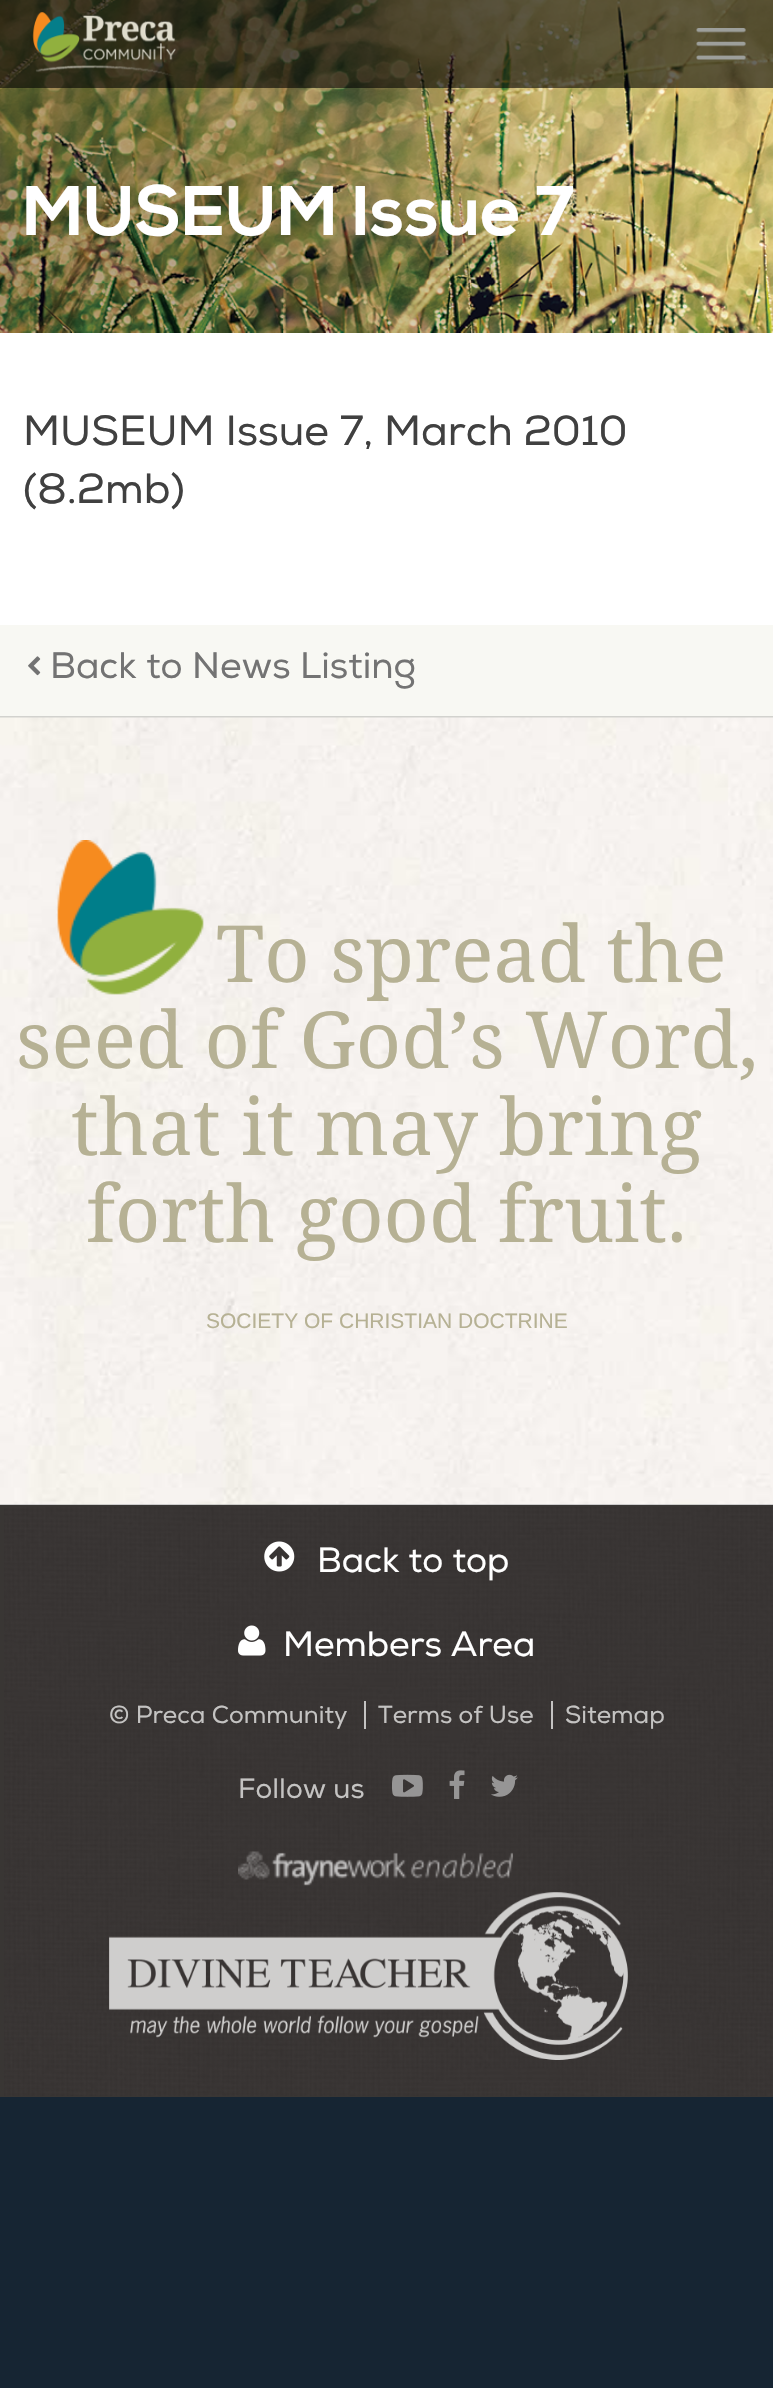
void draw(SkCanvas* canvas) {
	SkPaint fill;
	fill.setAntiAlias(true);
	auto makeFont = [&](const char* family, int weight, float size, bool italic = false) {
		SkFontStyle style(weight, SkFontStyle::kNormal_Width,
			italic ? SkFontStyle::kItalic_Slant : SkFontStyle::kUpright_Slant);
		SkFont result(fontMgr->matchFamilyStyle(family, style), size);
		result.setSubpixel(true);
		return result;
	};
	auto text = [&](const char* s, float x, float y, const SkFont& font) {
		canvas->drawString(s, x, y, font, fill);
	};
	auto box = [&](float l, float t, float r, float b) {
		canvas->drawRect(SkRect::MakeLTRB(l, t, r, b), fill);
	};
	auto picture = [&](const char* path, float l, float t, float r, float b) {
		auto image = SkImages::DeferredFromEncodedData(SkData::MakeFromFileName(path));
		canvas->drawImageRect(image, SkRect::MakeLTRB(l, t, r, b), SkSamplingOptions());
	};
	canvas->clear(0xFF162533);
	picture("image2.png", 0, 0, 773, 333);
	fill.setColor(0x99000000);
	box(0, 0, 773, 88);
	picture("image0.png", 32, 12, 176, 76);
	picture("image1.png", 696, 28, 746, 60);
	fill.setColor(0xFFFFFFFF);
	box(0, 333, 773, 625);
	fill.setColor(0xFFD2D2CE);
	box(0, 716, 773, 718);
	fill.setColor(0xFFF8F8F3);
	box(0, 625, 773, 716);
	picture("image3.png", 28, 656, 41, 676);
	picture("image4.png", 0, 717, 773, 1505);
	picture("image5.png", 57, 840, 204, 995);
	fill.setColor(0xFF393634);
	box(0, 1505, 773, 2097);
	picture("image6.png", 4, 1507, 773, 2096);
	picture("image7.png", 264, 1541, 295, 1572);
	picture("image8.png", 238, 1625, 266, 1656);
	fill.setColor(0xFFC4C3C2);
	box(364, 1701, 366, 1729);
	box(551, 1701, 553, 1729);
	picture("image9.png", 392, 1774, 423, 1797);
	picture("image10.png", 449, 1770, 465, 1799);
	picture("image11.png", 491, 1774, 518, 1797);
	picture("image12.png", 238, 1851, 513, 1886);
	picture("image13.png", 109, 1892, 628, 2060);
	auto font1 = makeFont("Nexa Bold", 700, 70);
	fill.setColor(0xFFFFFFFF);
	text("MUSEUM Issue 7", 23, 235, font1);
	auto font2 = makeFont("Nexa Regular", 400, 42);
	fill.setColor(0xFF404040);
	text("MUSEUM Issue 7, March 2010", 23, 445, font2);
	text("(8.2mb)", 23, 503, font2);
	auto font3 = makeFont("Nexa Regular", 400, 36.75f);
	fill.setColor(0xFF737373);
	text("Back to News Listing", 50, 678, font3);
	auto font4 = makeFont("Noto Serif", 400, 78.75f);
	fill.setColor(0xFFB6B194);
	text("To spread the", 216, 982, font4);
	text("seed of God’s Word,", 16, 1068, font4);
	text("that it may bring", 71, 1155, font4);
	text("forth good fruit.", 86, 1242, font4);
	auto font5 = makeFont("Liberation Sans", 400, 21);
	text("SOCIETY OF CHRISTIAN DOCTRINE", 206, 1328, font5);
	auto font6 = makeFont("Nexa Regular", 400, 35);
	fill.setColor(0xFFFFFFFF);
	text("Back to top", 317, 1572, font6);
	text("Members Area", 283, 1656, font6);
	auto font7 = makeFont("Nexa Regular", 400, 24.5f);
	fill.setColor(0xFFC4C3C2);
	text("© Preca Community", 109, 1723, font7);
	text("Terms of Use", 378, 1723, font7);
	text("Sitemap", 565, 1723, font7);
	auto font8 = makeFont("Nexa Regular", 400, 28);
	text("Follow us", 238, 1798, font8);
}
